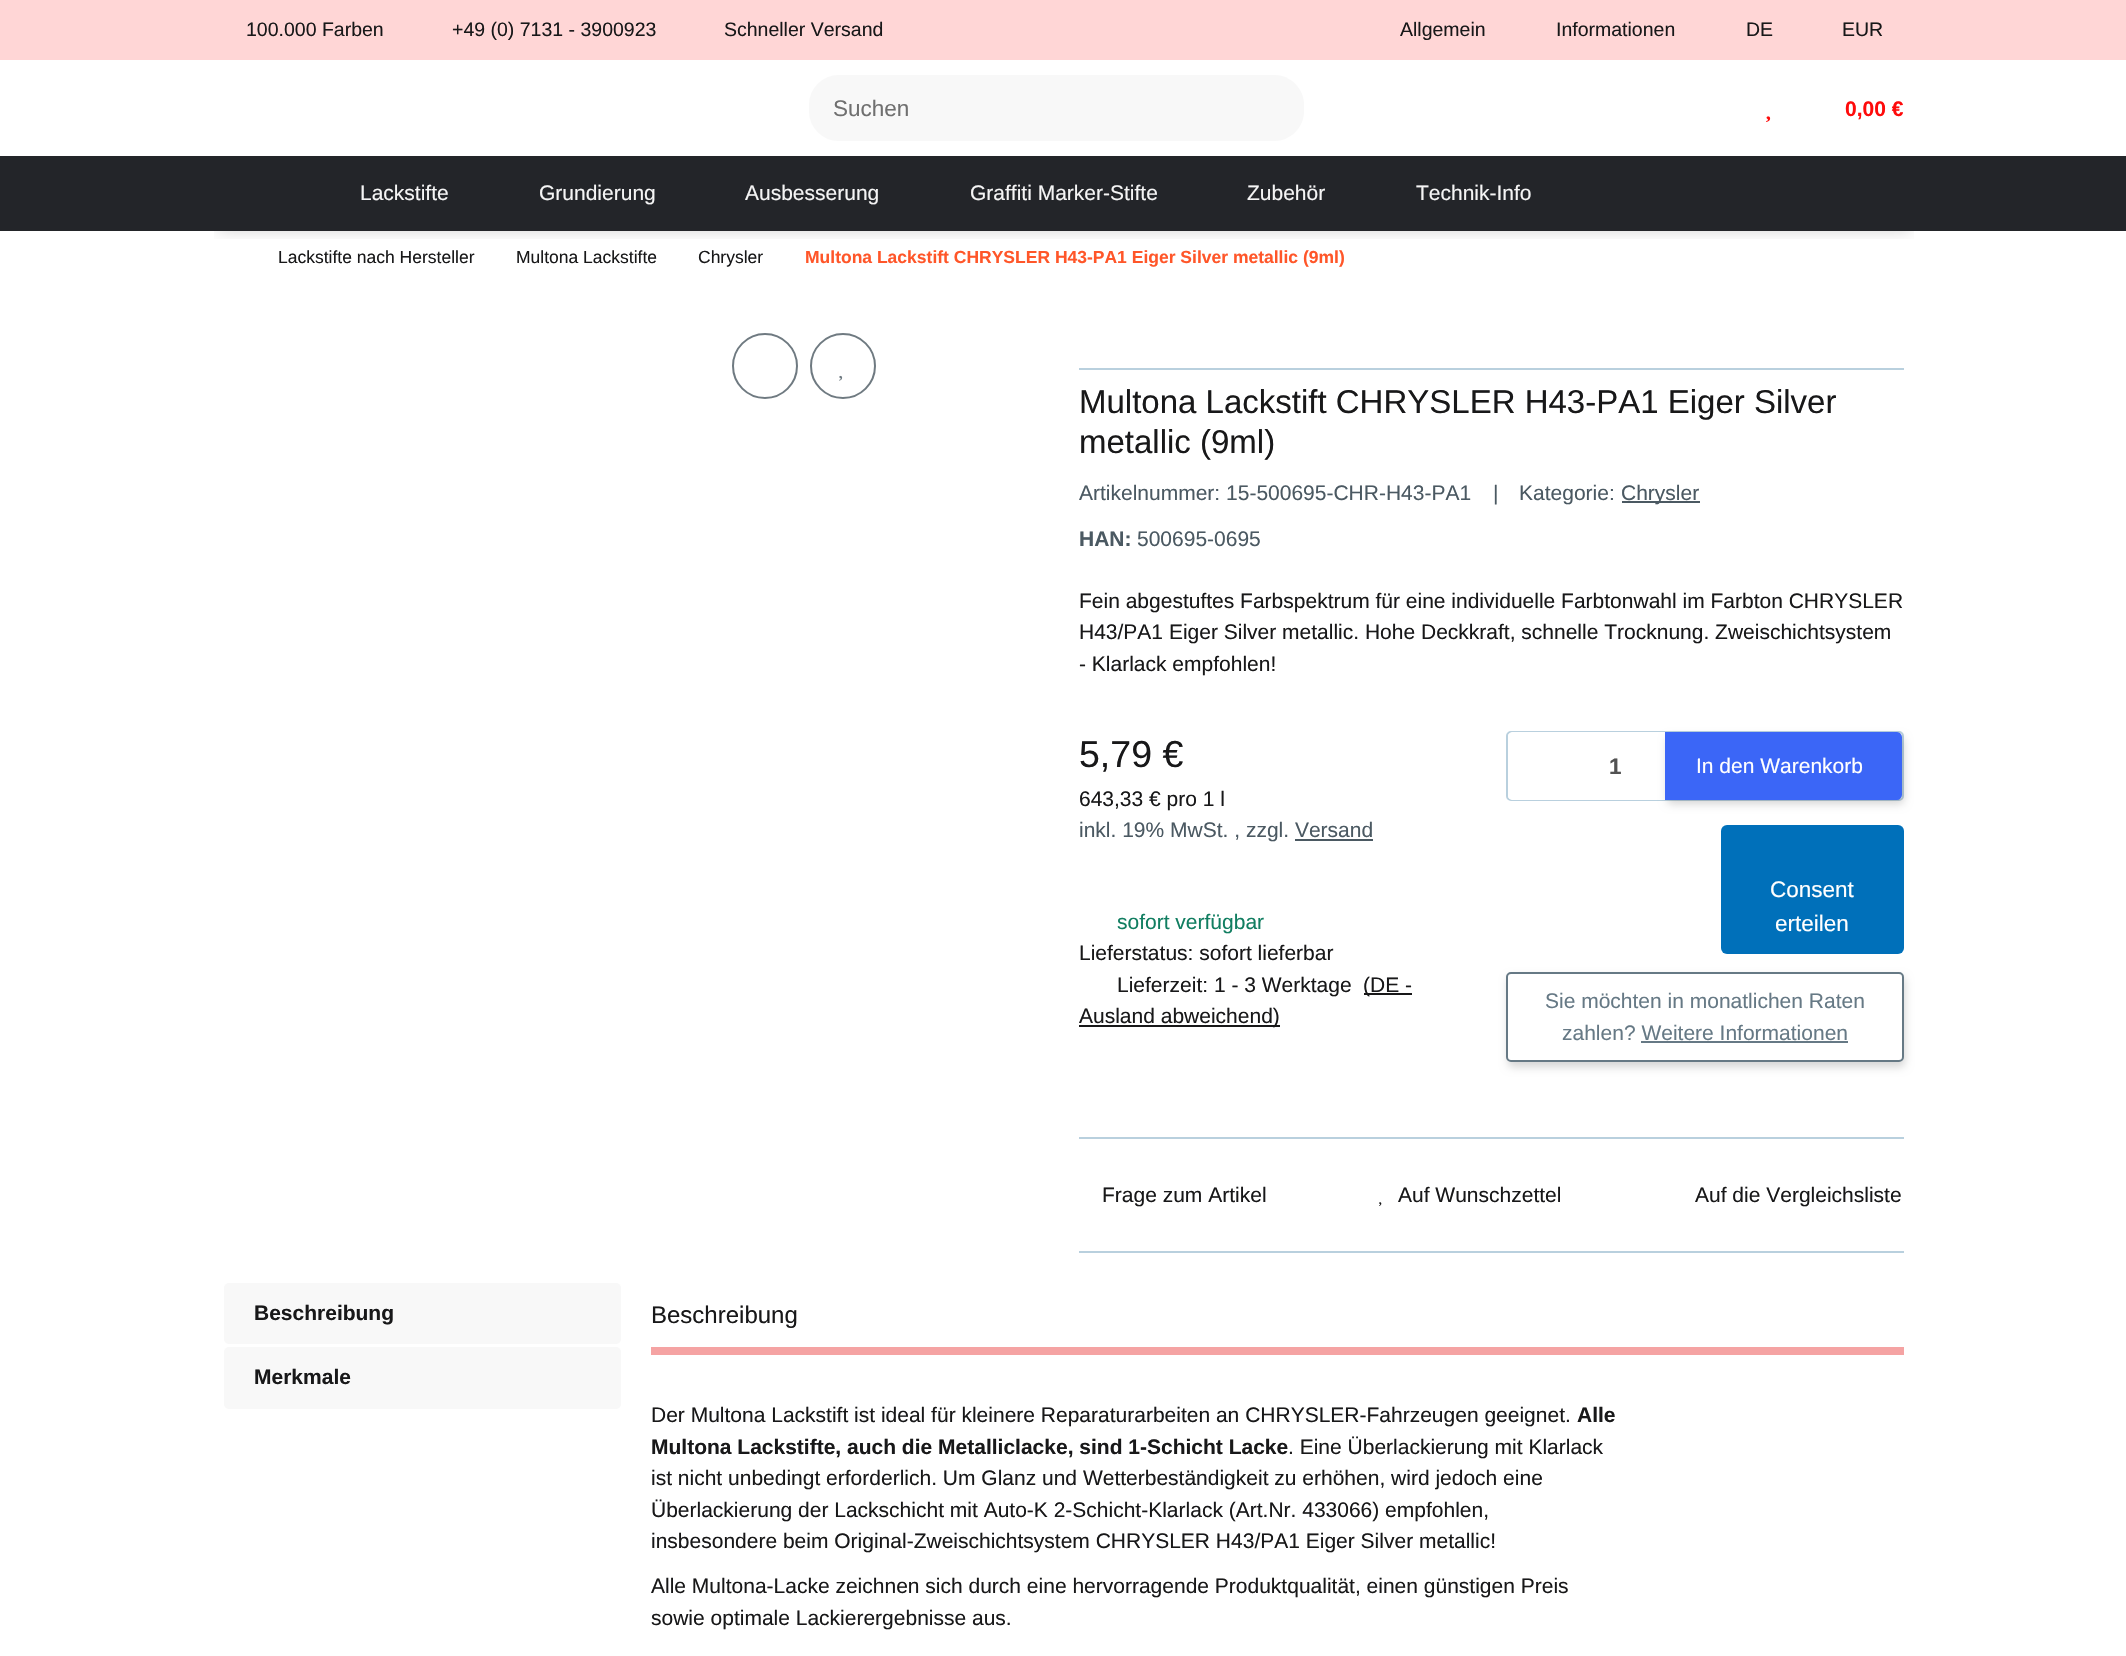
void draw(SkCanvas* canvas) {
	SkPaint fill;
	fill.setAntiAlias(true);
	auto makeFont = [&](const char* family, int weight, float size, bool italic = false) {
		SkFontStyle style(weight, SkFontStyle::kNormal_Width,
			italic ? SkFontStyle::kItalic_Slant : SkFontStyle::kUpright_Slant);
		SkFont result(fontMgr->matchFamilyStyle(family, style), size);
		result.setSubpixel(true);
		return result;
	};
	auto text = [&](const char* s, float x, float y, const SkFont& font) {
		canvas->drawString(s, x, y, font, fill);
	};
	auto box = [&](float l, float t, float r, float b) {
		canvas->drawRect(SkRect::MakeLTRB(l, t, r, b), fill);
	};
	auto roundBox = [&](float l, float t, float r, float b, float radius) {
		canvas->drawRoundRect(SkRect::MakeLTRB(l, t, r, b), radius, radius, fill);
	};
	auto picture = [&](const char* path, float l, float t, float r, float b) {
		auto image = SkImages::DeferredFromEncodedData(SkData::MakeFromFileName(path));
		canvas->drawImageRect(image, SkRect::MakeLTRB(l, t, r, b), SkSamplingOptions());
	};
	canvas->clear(0xFFFFFFFF);
	fill.setColor(0xFFFFD6D6);
	box(0, 0, 2126, 60);
	fill.setColor(0xFFF8F8F8);
	canvas->drawPath(SkPathBuilder().moveTo(839, 76).lineTo(1225, 76).lineTo(1225, 140).lineTo(839, 140).cubicTo(823, 140, 810, 127, 810, 111).lineTo(810, 105).cubicTo(810, 89, 823, 76, 839, 76).close().detach(), fill);
	fill.setStyle(SkPaint::kStroke_Style);
	fill.setStrokeWidth(2);
	canvas->drawPath(SkPathBuilder().moveTo(839, 76).lineTo(1225, 76).lineTo(1225, 140).lineTo(839, 140).cubicTo(823, 140, 810, 127, 810, 111).lineTo(810, 105).cubicTo(810, 89, 823, 76, 839, 76).close().detach(), fill);
	fill.setStyle(SkPaint::kFill_Style);
	canvas->drawPath(SkPathBuilder().moveTo(1224, 75).lineTo(1274, 75).cubicTo(1290.5f, 75, 1304, 88.5f, 1304, 105).lineTo(1304, 111).cubicTo(1304, 127.5f, 1290.5f, 141, 1274, 141).lineTo(1224, 141).close().detach(), fill);
	picture("image0.png", 1766, 116, 1771, 122);
	fill.setColor(0xFF232529);
	box(0, 156, 2126, 231);
	canvas->save();
	canvas->clipRect(SkRect::MakeLTRB(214, 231, 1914, 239));
	fill.setColor(0x29000000);
	fill.setMaskFilter(SkMaskFilter::MakeBlur(kNormal_SkBlurStyle, 7));
	canvas->drawRect(SkRect::MakeLTRB(218, 174, 1910, 231), fill);
	fill.setMaskFilter(nullptr);
	canvas->restore();
	fill.setStyle(SkPaint::kStroke_Style);
	fill.setColor(0xFF6F7A81);
	canvas->drawCircle(765, 366, 32, fill);
	canvas->drawCircle(843, 366, 32, fill);
	picture("image1.png", 839, 375, 843, 381);
	fill.setStyle(SkPaint::kFill_Style);
	fill.setColor(0xFFB9D0DE);
	box(1079, 368, 1904, 370);
	fill.setColor(0xFF4B5962);
	box(1622, 501, 1700, 503);
	box(1295, 839, 1373, 841);
	fill.setColor(0xFF181819);
	box(1364, 993, 1412, 995);
	box(1079, 1025, 1280, 1027);
	fill.setStyle(SkPaint::kStroke_Style);
	fill.setColor(0xFFB9D0DE);
	canvas->drawRoundRect(SkRect::MakeLTRB(1507, 732, 1903, 800), 4, 4, fill);
	fill.setStyle(SkPaint::kFill_Style);
	fill.setColor(0xFFFFFFFF);
	canvas->drawPath(SkPathBuilder().moveTo(1513, 732).lineTo(1667, 732).lineTo(1667, 800).lineTo(1513, 800).cubicTo(1510, 800, 1508, 798, 1508, 795).lineTo(1508, 737).cubicTo(1508, 734, 1510, 732, 1513, 732).close().detach(), fill);
	fill.setColor(0x29000000);
	fill.setMaskFilter(SkMaskFilter::MakeBlur(kNormal_SkBlurStyle, 4.5f));
	canvas->drawRoundRect(SkRect::MakeLTRB(1667, 737, 1904, 804), 5, 5, fill);
	fill.setMaskFilter(nullptr);
	fill.setColor(0xFF3B66F7);
	canvas->drawPath(SkPathBuilder().moveTo(1666, 733).lineTo(1897, 733).cubicTo(1899, 733, 1901, 735, 1901, 737).lineTo(1901, 795).cubicTo(1901, 797, 1899, 799, 1897, 799).lineTo(1666, 799).close().detach(), fill);
	fill.setStyle(SkPaint::kStroke_Style);
	canvas->drawPath(SkPathBuilder().moveTo(1666, 733).lineTo(1897, 733).cubicTo(1899, 733, 1901, 735, 1901, 737).lineTo(1901, 795).cubicTo(1901, 797, 1899, 799, 1897, 799).lineTo(1666, 799).close().detach(), fill);
	fill.setStyle(SkPaint::kFill_Style);
	fill.setColor(0xFF0070BA);
	roundBox(1721, 825, 1904, 954, 6);
	fill.setColor(0x29000000);
	fill.setMaskFilter(SkMaskFilter::MakeBlur(kNormal_SkBlurStyle, 4.5f));
	canvas->drawRoundRect(SkRect::MakeLTRB(1508, 977, 1905, 1067), 5, 5, fill);
	fill.setMaskFilter(nullptr);
	fill.setColor(0xFFFFFFFF);
	canvas->drawRoundRect(SkRect::MakeLTRB(1507, 973, 1903, 1061), 4, 4, fill);
	fill.setStyle(SkPaint::kStroke_Style);
	fill.setColor(0xFF667985);
	canvas->drawRoundRect(SkRect::MakeLTRB(1507, 973, 1903, 1061), 4, 4, fill);
	fill.setStyle(SkPaint::kFill_Style);
	box(1641, 1041, 1848, 1043);
	fill.setColor(0xFFB9D0DE);
	box(1079, 1137, 1904, 1139);
	box(1079, 1251, 1904, 1253);
	picture("image2.png", 1379, 1202, 1382, 1206);
	fill.setColor(0xFFF8F8F8);
	roundBox(224, 1283, 621, 1344, 5);
	roundBox(224, 1347, 621, 1409, 5);
	fill.setColor(0xFFF5A3A3);
	box(651, 1347, 1904, 1355);
	auto font1 = makeFont("Liberation Sans", 400, 19.5f);
	fill.setColor(0xFF181819);
	text("100.000 Farben", 246, 36, font1);
	text("+49 (0) 7131 - 3900923", 452, 36, font1);
	text("Schneller Versand", 724, 36, font1);
	text("Allgemein", 1400, 36, font1);
	text("Informationen", 1556, 36, font1);
	text("DE", 1746, 36, font1);
	text("EUR", 1842, 36, font1);
	auto font2 = makeFont("Liberation Sans", 400, 22.5f);
	fill.setColor(0xFF707070);
	text("Suchen", 833, 116, font2);
	auto font3 = makeFont("Liberation Sans", 700, 21);
	fill.setColor(0xFFFE0B0B);
	text("0,00 €", 1845, 116, font3);
	auto font4 = makeFont("Liberation Sans", 400, 21);
	fill.setColor(0xFFF5F5F5);
	text("Lackstifte", 360, 200, font4);
	text("Grundierung", 539, 200, font4);
	text("Ausbesserung", 745, 200, font4);
	text("Graffiti Marker-Stifte", 970, 200, font4);
	text("Zubehör", 1247, 200, font4);
	text("Technik-Info", 1416, 200, font4);
	auto font5 = makeFont("Liberation Sans", 400, 17.5f);
	fill.setColor(0xFF181819);
	text("Lackstifte nach Hersteller", 278, 263, font5);
	text("Multona Lackstifte", 516, 263, font5);
	text("Chrysler", 698, 263, font5);
	auto font6 = makeFont("Liberation Sans", 700, 17.5f);
	fill.setColor(0xFFFF5629);
	text("Multona Lackstift CHRYSLER H43-PA1 Eiger Silver metallic (9ml)", 805, 263, font6);
	auto font7 = makeFont("Liberation Sans", 400, 33);
	fill.setColor(0xFF181819);
	text("Multona Lackstift CHRYSLER H43-PA1 Eiger Silver", 1079, 413, font7);
	text("metallic (9ml)", 1079, 453, font7);
	fill.setColor(0xFF4B5962);
	text("Artikelnummer: 15-500695-CHR-H43-PA1", 1079, 500, font4);
	text("|", 1493, 500, font4);
	text("Kategorie:", 1519, 500, font4);
	text("Chrysler", 1621, 500, font4);
	text("HAN:", 1079, 546, font3);
	text("500695-0695", 1137, 546, font4);
	fill.setColor(0xFF181819);
	text("Fein abgestuftes Farbspektrum für eine individuelle Farbtonwahl im Farbton CHRYSLER", 1079, 608, font4);
	text("H43/PA1 Eiger Silver metallic. Hohe Deckkraft, schnelle Trocknung. Zweischichtsystem", 1079, 639, font4);
	text("- Klarlack empfohlen!", 1079, 671, font4);
	auto font8 = makeFont("Liberation Sans", 400, 37.5f);
	text("5,79 €", 1079, 767, font8);
	text("643,33 € pro 1 l", 1079, 806, font4);
	fill.setColor(0xFF4B5962);
	text("inkl. 19% MwSt. , zzgl. Versand", 1079, 837, font4);
	fill.setColor(0xFF117E61);
	text("sofort verfügbar", 1117, 929, font4);
	fill.setColor(0xFF181819);
	text("Lieferstatus: sofort lieferbar", 1079, 960, font4);
	text("Lieferzeit: 1 - 3 Werktage", 1117, 992, font4);
	text("(DE -", 1363, 992, font4);
	text("Ausland abweichend)", 1079, 1023, font4);
	auto font9 = makeFont("Liberation Sans", 700, 22.5f);
	fill.setColor(0xFF525252);
	text("1", 1609, 774, font9);
	fill.setColor(0xFFFFFFFF);
	text("In den Warenkorb", 1696, 773, font4);
	text("Consent", 1770, 897, font2);
	text("erteilen", 1775, 931, font2);
	fill.setColor(0xFF667985);
	text("Sie möchten in monatlichen Raten", 1545, 1008, font4);
	text("zahlen? Weitere Informationen", 1562, 1040, font4);
	fill.setColor(0xFF181819);
	text("Frage zum Artikel", 1102, 1202, font4);
	text("Auf Wunschzettel", 1398, 1202, font4);
	text("Auf die Vergleichsliste", 1695, 1202, font4);
	text("Beschreibung", 254, 1320, font3);
	text("Merkmale", 254, 1384, font3);
	auto font10 = makeFont("Liberation Sans", 400, 24);
	text("Beschreibung", 651, 1323, font10);
	text("Der Multona Lackstift ist ideal für kleinere Reparaturarbeiten an CHRYSLER-Fahrzeugen geeignet.", 651, 1422, font4);
	text("Alle", 1577, 1422, font3);
	text("Multona Lackstifte, auch die Metalliclacke, sind 1-Schicht Lacke", 651, 1454, font3);
	text(". Eine Überlackierung mit Klarlack", 1288, 1454, font4);
	text("ist nicht unbedingt erforderlich. Um Glanz und Wetterbeständigkeit zu erhöhen, wird jedoch eine", 651, 1485, font4);
	text("Überlackierung der Lackschicht mit Auto-K 2-Schicht-Klarlack (Art.Nr. 433066) empfohlen,", 651, 1517, font4);
	text("insbesondere beim Original-Zweischichtsystem CHRYSLER H43/PA1 Eiger Silver metallic!", 651, 1548, font4);
	text("Alle Multona-Lacke zeichnen sich durch eine hervorragende Produktqualität, einen günstigen Preis", 651, 1593, font4);
	text("sowie optimale Lackierergebnisse aus.", 651, 1625, font4);
}
